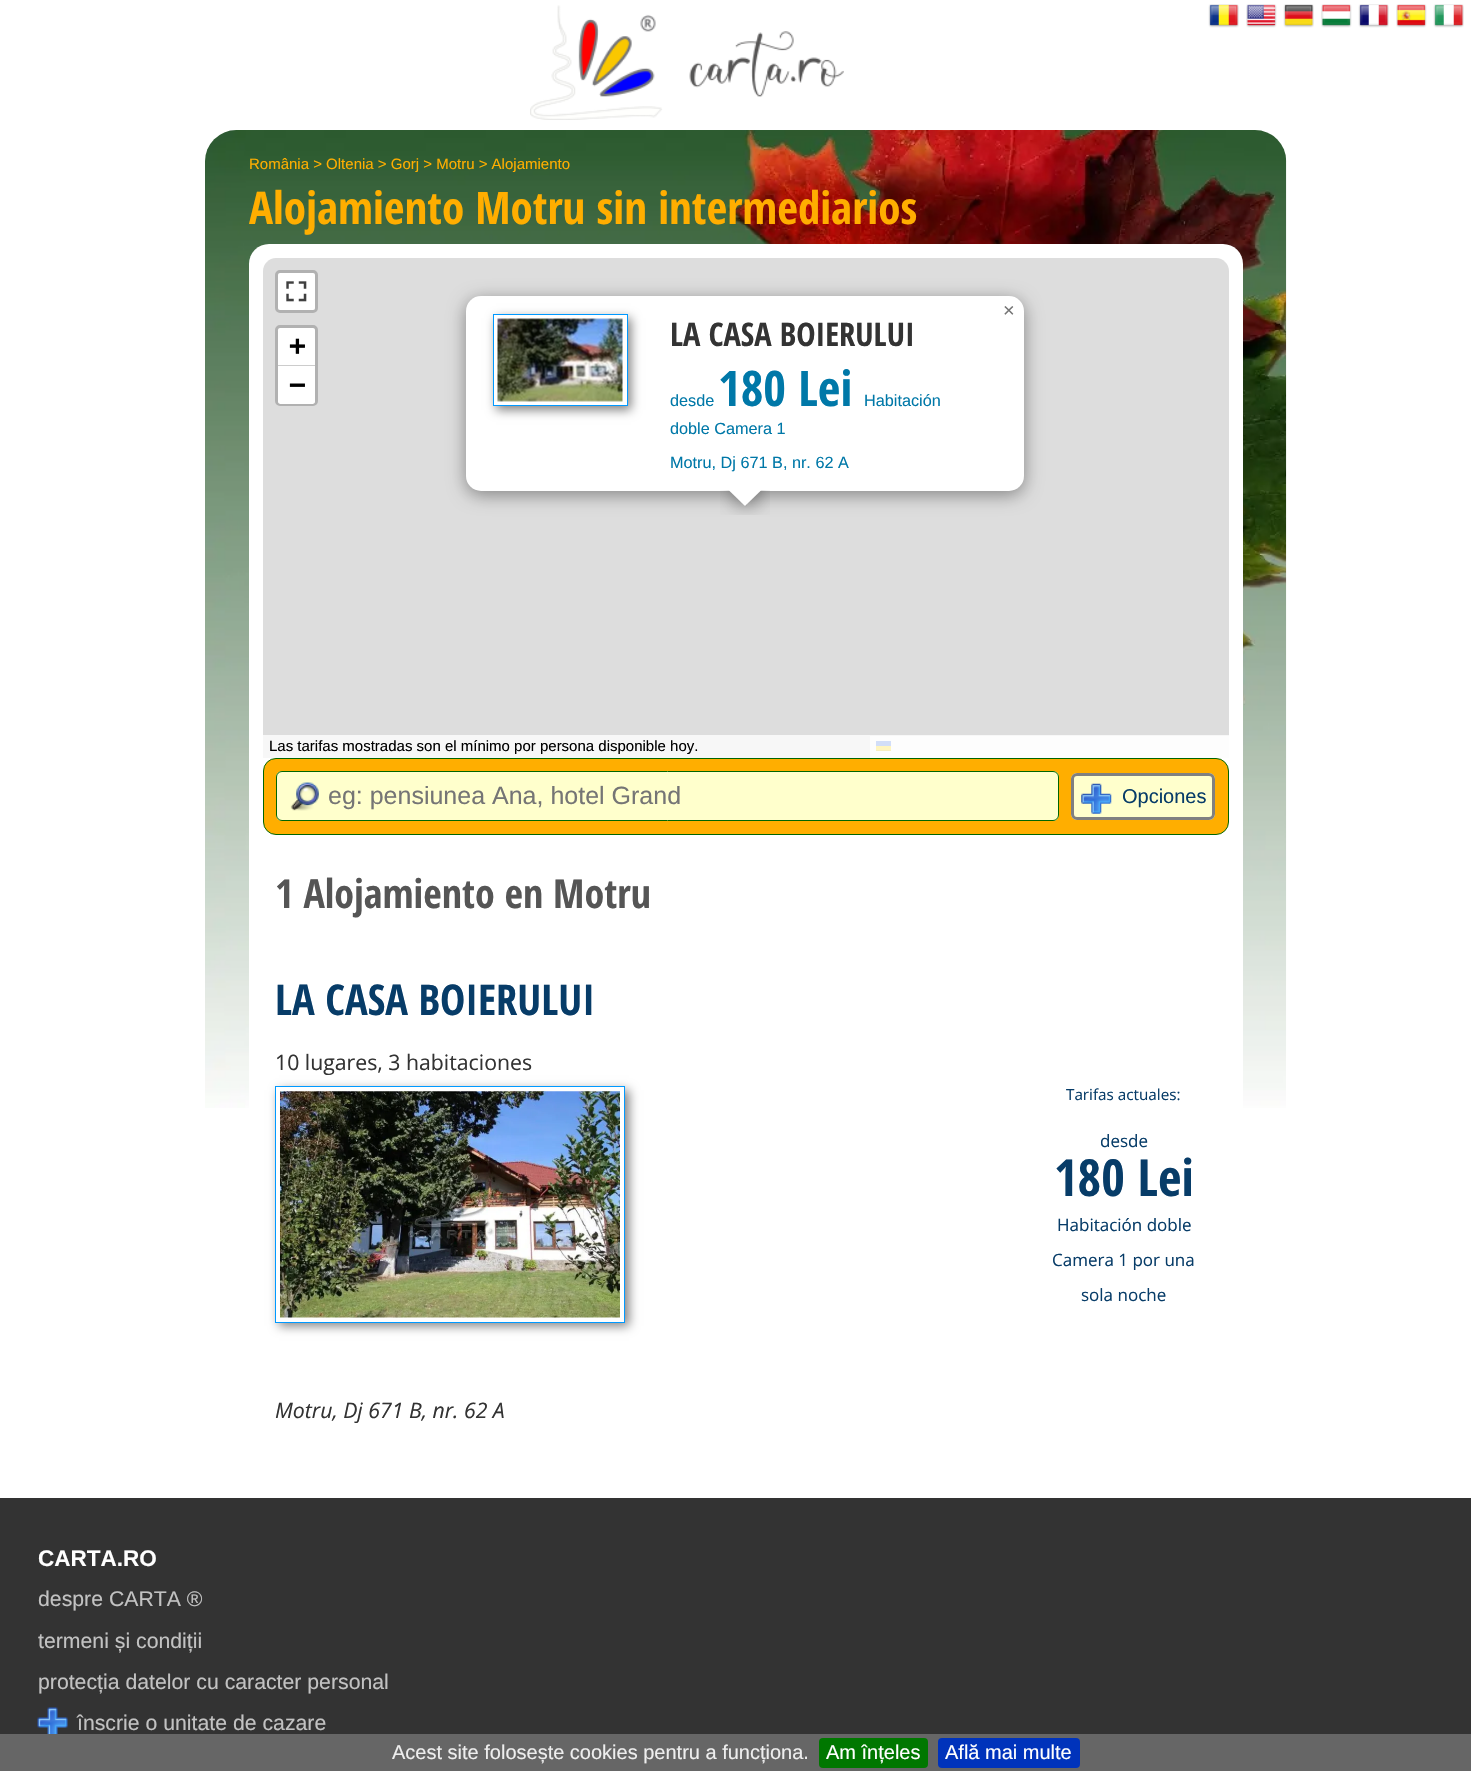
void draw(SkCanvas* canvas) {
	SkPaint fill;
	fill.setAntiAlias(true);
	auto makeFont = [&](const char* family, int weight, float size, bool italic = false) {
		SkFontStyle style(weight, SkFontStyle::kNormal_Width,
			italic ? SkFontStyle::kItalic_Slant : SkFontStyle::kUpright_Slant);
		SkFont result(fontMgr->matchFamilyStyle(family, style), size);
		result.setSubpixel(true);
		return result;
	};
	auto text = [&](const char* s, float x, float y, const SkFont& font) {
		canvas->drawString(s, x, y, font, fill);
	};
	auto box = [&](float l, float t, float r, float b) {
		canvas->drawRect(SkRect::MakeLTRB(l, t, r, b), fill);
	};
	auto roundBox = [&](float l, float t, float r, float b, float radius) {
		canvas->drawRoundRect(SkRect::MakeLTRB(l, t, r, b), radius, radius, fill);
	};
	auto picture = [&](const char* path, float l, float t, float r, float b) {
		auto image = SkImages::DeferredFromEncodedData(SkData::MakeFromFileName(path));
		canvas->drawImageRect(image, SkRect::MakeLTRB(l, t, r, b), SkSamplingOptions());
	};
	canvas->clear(0xFFFFFFFF);
	picture("image0.png", 1208, 4, 1464, 28);
	picture("image1.png", 530, 5, 844, 120);
	picture("image2.png", 205, 130, 1287, 1108);
	fill.setColor(0xFFFFFFFF);
	roundBox(249, 244, 1243, 1466, 20);
	fill.setColor(0xFFDDDDDD);
	canvas->drawPath(SkPathBuilder().moveTo(276, 258).lineTo(1216, 258).cubicTo(1223, 258, 1229, 264, 1229, 271).lineTo(1229, 758).lineTo(263, 758).lineTo(263, 271).cubicTo(263, 264, 269, 258, 276, 258).close().detach(), fill);
	fill.setStyle(SkPaint::kStroke_Style);
	fill.setStrokeWidth(3);
	fill.setColor(0xFFB1B1B1);
	canvas->drawRoundRect(SkRect::MakeLTRB(276.5f, 271.5f, 316.5f, 311.5f), 3.5f, 3.5f, fill);
	fill.setStyle(SkPaint::kFill_Style);
	fill.setColor(0xFFFFFFFF);
	roundBox(278, 273, 315, 310, 2.5f);
	picture("image3.png", 286, 281, 307, 302);
	fill.setStyle(SkPaint::kStroke_Style);
	fill.setColor(0xFFB1B1B1);
	canvas->drawRoundRect(SkRect::MakeLTRB(276.5f, 326.5f, 316.5f, 404.5f), 3.5f, 3.5f, fill);
	fill.setStyle(SkPaint::kFill_Style);
	fill.setColor(0xFFFFFFFF);
	canvas->drawPath(SkPathBuilder().moveTo(280.5f, 328).lineTo(312.5f, 328).cubicTo(314, 328, 315, 329, 315, 330.5f).lineTo(315, 366).lineTo(278, 366).lineTo(278, 330.5f).cubicTo(278, 329, 279, 328, 280.5f, 328).close().detach(), fill);
	fill.setColor(0xFFCCCCCC);
	box(278, 365, 315, 366);
	fill.setColor(0xFFFFFFFF);
	canvas->drawPath(SkPathBuilder().moveTo(278, 366).lineTo(315, 366).lineTo(315, 401.5f).cubicTo(315, 403, 314, 404, 312.5f, 404).lineTo(280.5f, 404).cubicTo(279, 404, 278, 403, 278, 401.5f).close().detach(), fill);
	fill.setColor(0xFFF8F8F8);
	box(870, 736, 1229, 758);
	fill.setColor(0xFF4C7BE1);
	box(876, 741, 891, 746);
	fill.setColor(0xFFFFD500);
	box(876, 746, 891, 750);
	fill.setColor(0xFFE0BC00);
	box(876, 750, 891, 751);
	picture("image5.png", 744, 504, 747, 507);
	fill.setColor(0x66000000);
	fill.setMaskFilter(SkMaskFilter::MakeBlur(kNormal_SkBlurStyle, 9));
	canvas->drawRoundRect(SkRect::MakeLTRB(466, 300, 1024, 495), 15, 15, fill);
	fill.setMaskFilter(nullptr);
	fill.setColor(0xFFFFFFFF);
	roundBox(466, 296, 1024, 491, 15);
	fill.setColor(0xFF818181);
	fill.setMaskFilter(SkMaskFilter::MakeBlur(kNormal_SkBlurStyle, 5));
	canvas->drawRect(SkRect::MakeLTRB(496, 318, 631, 410), fill);
	fill.setMaskFilter(nullptr);
	fill.setColor(0xFFFFFFFF);
	canvas->drawRect(SkRect::MakeLTRB(493.5f, 314.5f, 627.5f, 405.5f), fill);
	fill.setStyle(SkPaint::kStroke_Style);
	fill.setStrokeWidth(1);
	fill.setColor(0xFF0099FF);
	canvas->drawRect(SkRect::MakeLTRB(493.5f, 314.5f, 627.5f, 405.5f), fill);
	picture("image4.png", 497, 318, 623, 402);
	canvas->save();
	canvas->clipRect(SkRect::MakeLTRB(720, 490, 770, 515));
	fill.setStyle(SkPaint::kFill_Style);
	fill.setColor(0x66000000);
	fill.setMaskFilter(SkMaskFilter::MakeBlur(kNormal_SkBlurStyle, 9));
	canvas->drawRect(SkRect::MakeLTRB(734, 481, 758, 505), fill);
	fill.setMaskFilter(nullptr);
	canvas->restore();
	canvas->save();
	canvas->clipRect(SkRect::MakeLTRB(720, 490, 770, 515));
	fill.setColor(0xFFFFFFFF);
	canvas->drawPath(SkPathBuilder().moveTo(745, 472.5f).lineTo(762, 489.5f).lineTo(745, 506).lineTo(728, 489.5f).close().detach(), fill);
	canvas->restore();
	fill.setColor(0xBFFFFFFF);
	box(263, 735, 1229, 758);
	fill.setColor(0xFFFFAE00);
	canvas->drawRoundRect(SkRect::MakeLTRB(263.5f, 758.5f, 1228.5f, 834.5f), 12.5f, 12.5f, fill);
	fill.setStyle(SkPaint::kStroke_Style);
	fill.setColor(0xFF006600);
	canvas->drawRoundRect(SkRect::MakeLTRB(263.5f, 758.5f, 1228.5f, 834.5f), 12.5f, 12.5f, fill);
	fill.setStyle(SkPaint::kFill_Style);
	fill.setColor(0xFFFFFFCC);
	roundBox(276, 771, 1059, 821, 6);
	picture("image6.png", 290, 782, 319, 811);
	fill.setStyle(SkPaint::kStroke_Style);
	fill.setColor(0xFF006600);
	canvas->drawRoundRect(SkRect::MakeLTRB(276.5f, 771.5f, 1058.5f, 820.5f), 5.5f, 5.5f, fill);
	fill.setStyle(SkPaint::kFill_Style);
	fill.setColor(0xFFFFFFCC);
	roundBox(1071, 773, 1215, 820, 6);
	picture("image7.png", 1081, 783, 1112, 814);
	fill.setStyle(SkPaint::kStroke_Style);
	fill.setStrokeWidth(3);
	fill.setColor(0xFF808080);
	canvas->drawRoundRect(SkRect::MakeLTRB(1072.5f, 774.5f, 1213.5f, 818.5f), 4.5f, 4.5f, fill);
	canvas->save();
	canvas->clipPath(SkPathBuilder(SkPathFillType::kEvenOdd).moveTo(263, 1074).lineTo(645, 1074).lineTo(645, 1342).lineTo(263, 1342).close().moveTo(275, 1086).lineTo(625, 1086).lineTo(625, 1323).lineTo(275, 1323).close().detach(), true);
	fill.setStyle(SkPaint::kFill_Style);
	fill.setColor(0xFF818181);
	fill.setMaskFilter(SkMaskFilter::MakeBlur(kNormal_SkBlurStyle, 5));
	canvas->drawRect(SkRect::MakeLTRB(279, 1090, 629, 1326), fill);
	fill.setMaskFilter(nullptr);
	canvas->restore();
	fill.setStyle(SkPaint::kStroke_Style);
	fill.setStrokeWidth(1);
	fill.setColor(0xFF0099FF);
	canvas->drawRect(SkRect::MakeLTRB(275.5f, 1086.5f, 624.5f, 1322.5f), fill);
	picture("image8.png", 280, 1091, 620, 1318);
	fill.setStyle(SkPaint::kFill_Style);
	fill.setColor(0xFF333333);
	box(0, 1498, 1471, 1734);
	picture("image9.png", 37, 1707, 68, 1734);
	fill.setColor(0xFF666666);
	box(0, 1734, 1471, 1771);
	fill.setColor(0xFF007700);
	roundBox(819, 1738, 928, 1768, 4);
	fill.setColor(0xFF0033BB);
	roundBox(938, 1738, 1080, 1768, 4);
	auto font1 = makeFont("Liberation Sans", 400, 15);
	fill.setColor(0xFFFFAE00);
	text("România > Oltenia > Gorj > Motru > Alojamiento", 249, 169, font1);
	auto font2 = makeFont("Open Sans Condensed", 700, 45);
	text("Alojamiento Motru sin intermediarios", 249, 224, font2);
	auto font3 = makeFont("DejaVu Sans Mono", 700, 28);
	fill.setColor(0xFF000000);
	text("+", 289, 355, font3);
	text("−", 289, 394, font3);
	auto font4 = makeFont("Liberation Sans", 400, 20);
	fill.setColor(0xFF757575);
	text("×", 1003, 317, font4);
	auto font5 = makeFont("Open Sans Condensed", 700, 32.5f);
	fill.setColor(0xFF333333);
	text("LA CASA BOIERULUI", 670, 346, font5);
	auto font6 = makeFont("Liberation Sans", 400, 16.25f);
	fill.setColor(0xFF0078A8);
	text("desde", 670, 406, font6);
	auto font7 = makeFont("Open Sans Condensed", 700, 49);
	text("180 Lei", 718, 406, font7);
	text("Habitación", 864, 406, font6);
	text("doble Camera 1", 670, 434, font6);
	text("Motru, Dj 671 B, nr. 62 A", 670, 468, font6);
	fill.setColor(0xFF000000);
	text("Las tarifas mostradas son el mínimo por persona disponible hoy.", 269, 751, font1);
	auto font8 = makeFont("Liberation Sans", 400, 25);
	fill.setColor(0xFF757575);
	text("eg: pensiunea Ana, hotel Grand", 328, 804, font8);
	fill.setColor(0xFF073C68);
	text("Opciones", 1122, 803, font4);
	auto font9 = makeFont("Open Sans Condensed", 700, 40);
	fill.setColor(0xFF555555);
	text("1 Alojamiento en Motru", 275, 908, font9);
	auto font10 = makeFont("Open Sans Condensed", 700, 42.5f);
	fill.setColor(0xFF073C68);
	text("LA CASA BOIERULUI", 275, 1015, font10);
	auto font11 = makeFont("Open Sans", 400, 21.25f);
	fill.setColor(0xFF333333);
	text("10 lugares, 3 habitaciones", 275, 1070, font11);
	auto font12 = makeFont("Open Sans", 400, 15.25f);
	fill.setColor(0xFF073C68);
	text("Tarifas actuales:", 1066, 1100, font12);
	auto font13 = makeFont("Open Sans", 400, 17);
	text("desde", 1100, 1147, font13);
	auto font14 = makeFont("Open Sans Condensed", 700, 51);
	text("180 Lei", 1054, 1196, font14);
	text("Habitación doble", 1057, 1231, font13);
	text("Camera 1 por una", 1052, 1266, font13);
	text("sola noche", 1081, 1301, font13);
	auto font15 = makeFont("Open Sans", 400, 21.25f, true);
	fill.setColor(0xFF333333);
	text("Motru, Dj 671 B, nr. 62 A", 275, 1418, font15);
	auto font16 = makeFont("Liberation Sans", 700, 22.5f);
	fill.setColor(0xFFFFFFFF);
	text("CARTA.RO", 38, 1566, font16);
	auto font17 = makeFont("Liberation Sans", 400, 21.25f);
	fill.setColor(0xFFC2C2C2);
	text("despre CARTA ®", 38, 1606, font17);
	text("termeni și condiții", 38, 1648, font17);
	text("protecția datelor cu caracter personal", 38, 1689, font17);
	text("înscrie o unitate de cazare", 77, 1730, font17);
	fill.setColor(0xFFEEEEEE);
	text("Acest site folosește cookies pentru a funcționa.", 392, 1759, font4);
	fill.setColor(0xFFFFFFFF);
	text("Am înțeles", 826, 1759, font4);
	text("Află mai multe", 945, 1759, font4);
}
